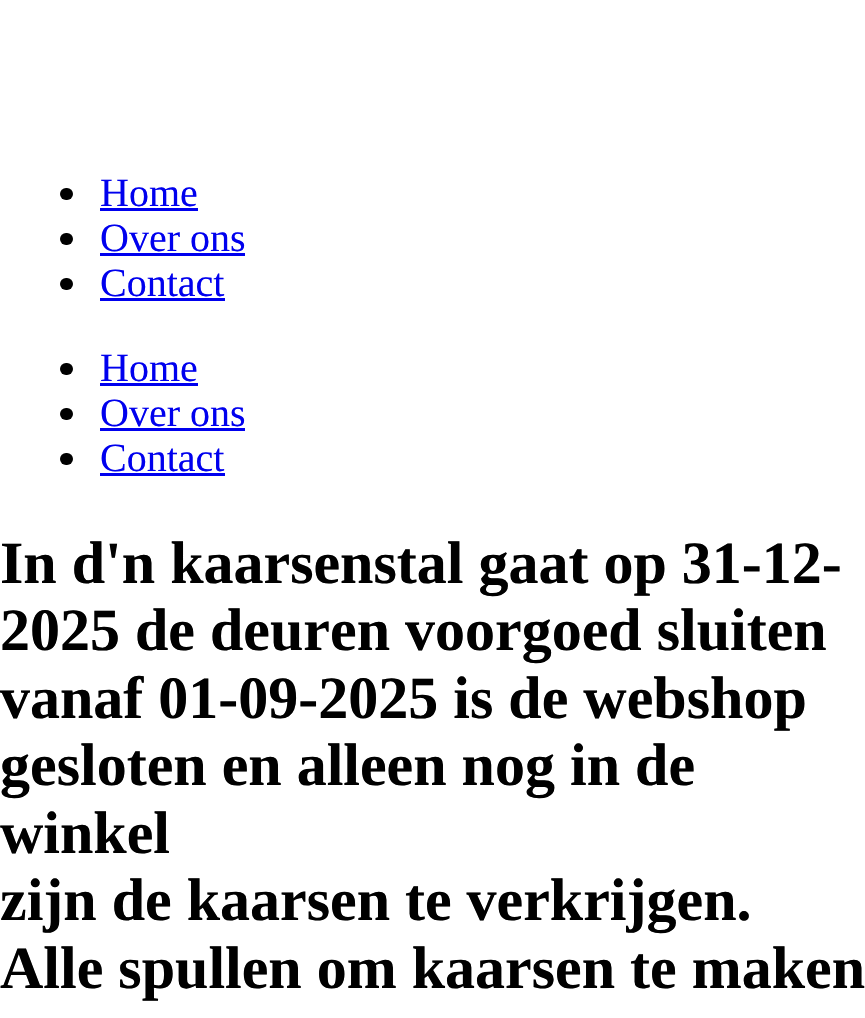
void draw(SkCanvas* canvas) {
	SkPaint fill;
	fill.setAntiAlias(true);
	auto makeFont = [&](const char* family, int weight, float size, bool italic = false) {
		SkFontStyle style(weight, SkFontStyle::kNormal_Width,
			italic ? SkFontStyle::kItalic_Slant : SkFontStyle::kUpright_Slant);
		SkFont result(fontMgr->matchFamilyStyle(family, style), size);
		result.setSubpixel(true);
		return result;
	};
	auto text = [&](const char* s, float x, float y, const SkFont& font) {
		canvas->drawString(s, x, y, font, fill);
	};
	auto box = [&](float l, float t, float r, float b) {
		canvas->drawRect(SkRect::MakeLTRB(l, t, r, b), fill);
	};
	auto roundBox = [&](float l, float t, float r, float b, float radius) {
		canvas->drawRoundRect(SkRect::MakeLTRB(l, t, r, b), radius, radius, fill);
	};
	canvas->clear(0xFFFFFFFF);
	fill.setColor(0xFF000000);
	roundBox(60, 188, 73, 200, 6);
	fill.setColor(0xFF0000EE);
	box(100, 208, 198, 211);
	fill.setColor(0xFF000000);
	roundBox(60, 233, 73, 245, 6);
	fill.setColor(0xFF0000EE);
	box(100, 253, 245, 256);
	fill.setColor(0xFF000000);
	roundBox(60, 278, 73, 290, 6);
	fill.setColor(0xFF0000EE);
	box(100, 298, 225, 301);
	fill.setColor(0xFF000000);
	roundBox(60, 363, 73, 375, 6);
	fill.setColor(0xFF0000EE);
	box(100, 383, 198, 386);
	fill.setColor(0xFF000000);
	roundBox(60, 408, 73, 420, 6);
	fill.setColor(0xFF0000EE);
	box(100, 428, 245, 431);
	fill.setColor(0xFF000000);
	roundBox(60, 453, 73, 465, 6);
	fill.setColor(0xFF0000EE);
	box(100, 473, 225, 476);
	auto font1 = makeFont("Liberation Serif", 400, 40);
	text("Home", 100, 206, font1);
	text("Over ons", 100, 251, font1);
	text("Contact", 100, 296, font1);
	text("Home", 100, 381, font1);
	text("Over ons", 100, 426, font1);
	text("Contact", 100, 471, font1);
	auto font2 = makeFont("Liberation Serif", 700, 60);
	fill.setColor(0xFF000000);
	text("In d'n kaarsenstal gaat op 31-12-", 0, 583, font2);
	text("2025 de deuren voorgoed sluiten", 0, 650, font2);
	text("vanaf 01-09-2025 is de webshop", 0, 718, font2);
	text("gesloten en alleen nog in de", 0, 785, font2);
	text("winkel", 0, 853, font2);
	text("zijn de kaarsen te verkrijgen.", 0, 920, font2);
	text("Alle spullen om kaarsen te maken", 0, 988, font2);
}
